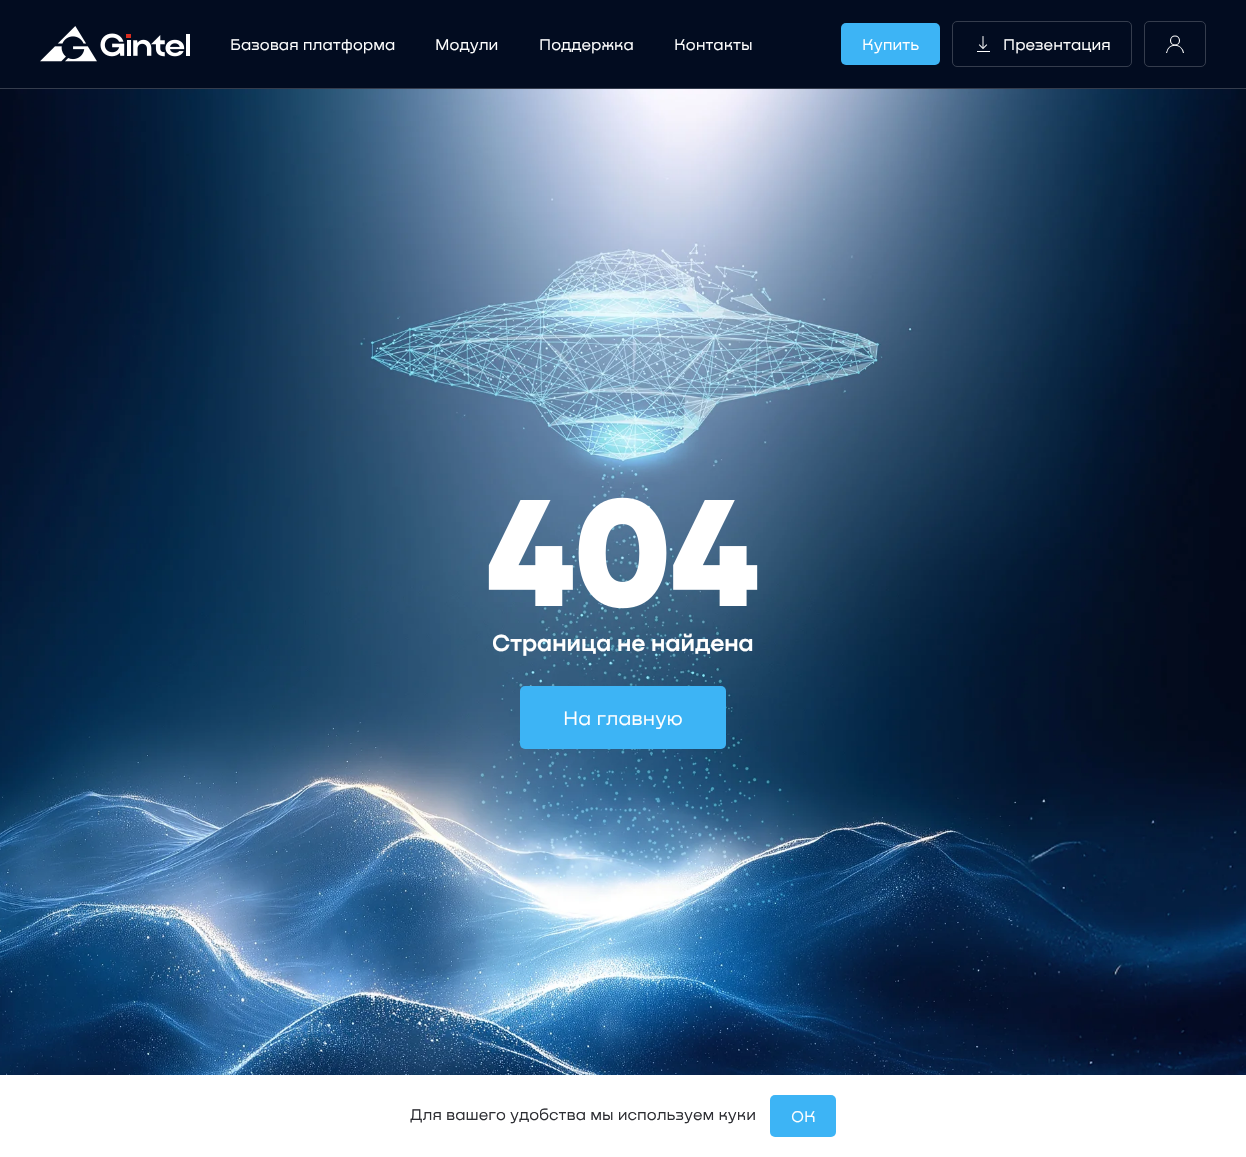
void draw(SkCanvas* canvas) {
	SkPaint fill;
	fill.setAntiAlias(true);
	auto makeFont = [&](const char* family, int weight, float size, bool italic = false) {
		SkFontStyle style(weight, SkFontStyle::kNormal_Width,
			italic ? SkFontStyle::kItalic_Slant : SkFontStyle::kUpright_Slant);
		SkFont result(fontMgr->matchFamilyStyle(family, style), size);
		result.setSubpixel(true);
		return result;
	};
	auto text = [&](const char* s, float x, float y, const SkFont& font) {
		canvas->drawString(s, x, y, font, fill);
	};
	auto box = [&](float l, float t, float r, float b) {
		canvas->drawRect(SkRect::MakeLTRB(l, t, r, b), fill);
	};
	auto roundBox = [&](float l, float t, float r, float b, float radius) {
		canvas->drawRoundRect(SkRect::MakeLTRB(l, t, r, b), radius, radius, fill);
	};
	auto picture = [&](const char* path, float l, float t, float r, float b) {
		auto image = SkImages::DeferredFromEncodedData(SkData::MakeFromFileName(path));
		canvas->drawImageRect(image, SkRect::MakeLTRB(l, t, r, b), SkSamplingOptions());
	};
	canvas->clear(0xFF020C20);
	fill.setColor(0xFF353D4D);
	box(0, 88, 1246, 89);
	picture("image0.png", 40, 26, 190, 62);
	fill.setColor(0xFF3DB4F5);
	roundBox(841, 23, 940, 65, 5);
	fill.setStyle(SkPaint::kStroke_Style);
	fill.setStrokeWidth(1);
	fill.setColor(0xFF353D4D);
	canvas->drawRoundRect(SkRect::MakeLTRB(952.5f, 21.5f, 1131.5f, 66.5f), 4.5f, 4.5f, fill);
	picture("image1.png", 977, 36, 990, 52);
	canvas->drawRoundRect(SkRect::MakeLTRB(1144.5f, 21.5f, 1205.5f, 66.5f), 4.5f, 4.5f, fill);
	fill.setStrokeWidth(1.1f);
	fill.setColor(0xFFFFFFFF);
	canvas->drawCircle(1175, 40.5f, 4.5f, fill);
	canvas->drawPath(SkPathBuilder().moveTo(1166.5f, 53).cubicTo(1168.5f, 42.5f, 1181.5f, 43, 1183.5f, 53).detach(), fill);
	picture("image2.png", 0, 89, 1246, 1075);
	picture("image3.png", 488, 497, 758, 609);
	fill.setStyle(SkPaint::kFill_Style);
	fill.setColor(0xFF3DB4F5);
	roundBox(520, 686, 726, 749, 5);
	fill.setColor(0xFFFFFFFF);
	box(0, 1075, 1246, 1157);
	fill.setColor(0xFF3DB4F5);
	roundBox(770, 1095, 836, 1137, 5);
	auto font1 = makeFont("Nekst", 400, 16);
	fill.setColor(0xFFFFFFFF);
	text("Базовая платформа", 230, 50, font1);
	text("Модули", 435, 50, font1);
	text("Поддержка", 539, 50, font1);
	text("Контакты", 674, 50, font1);
	text("Купить", 862, 50, font1);
	text("Презентация", 1003, 50, font1);
	auto font2 = makeFont("Nekst", 600, 24);
	text("Страница не найдена", 492, 651, font2);
	auto font3 = makeFont("Nekst", 400, 20);
	text("На главную", 563, 725, font3);
	fill.setColor(0xFF2D2E33);
	text("Для вашего удобства мы используем куки", 410, 1120, font1);
	fill.setColor(0xFFFFFFFF);
	text("OК", 791, 1122, font1);
}
